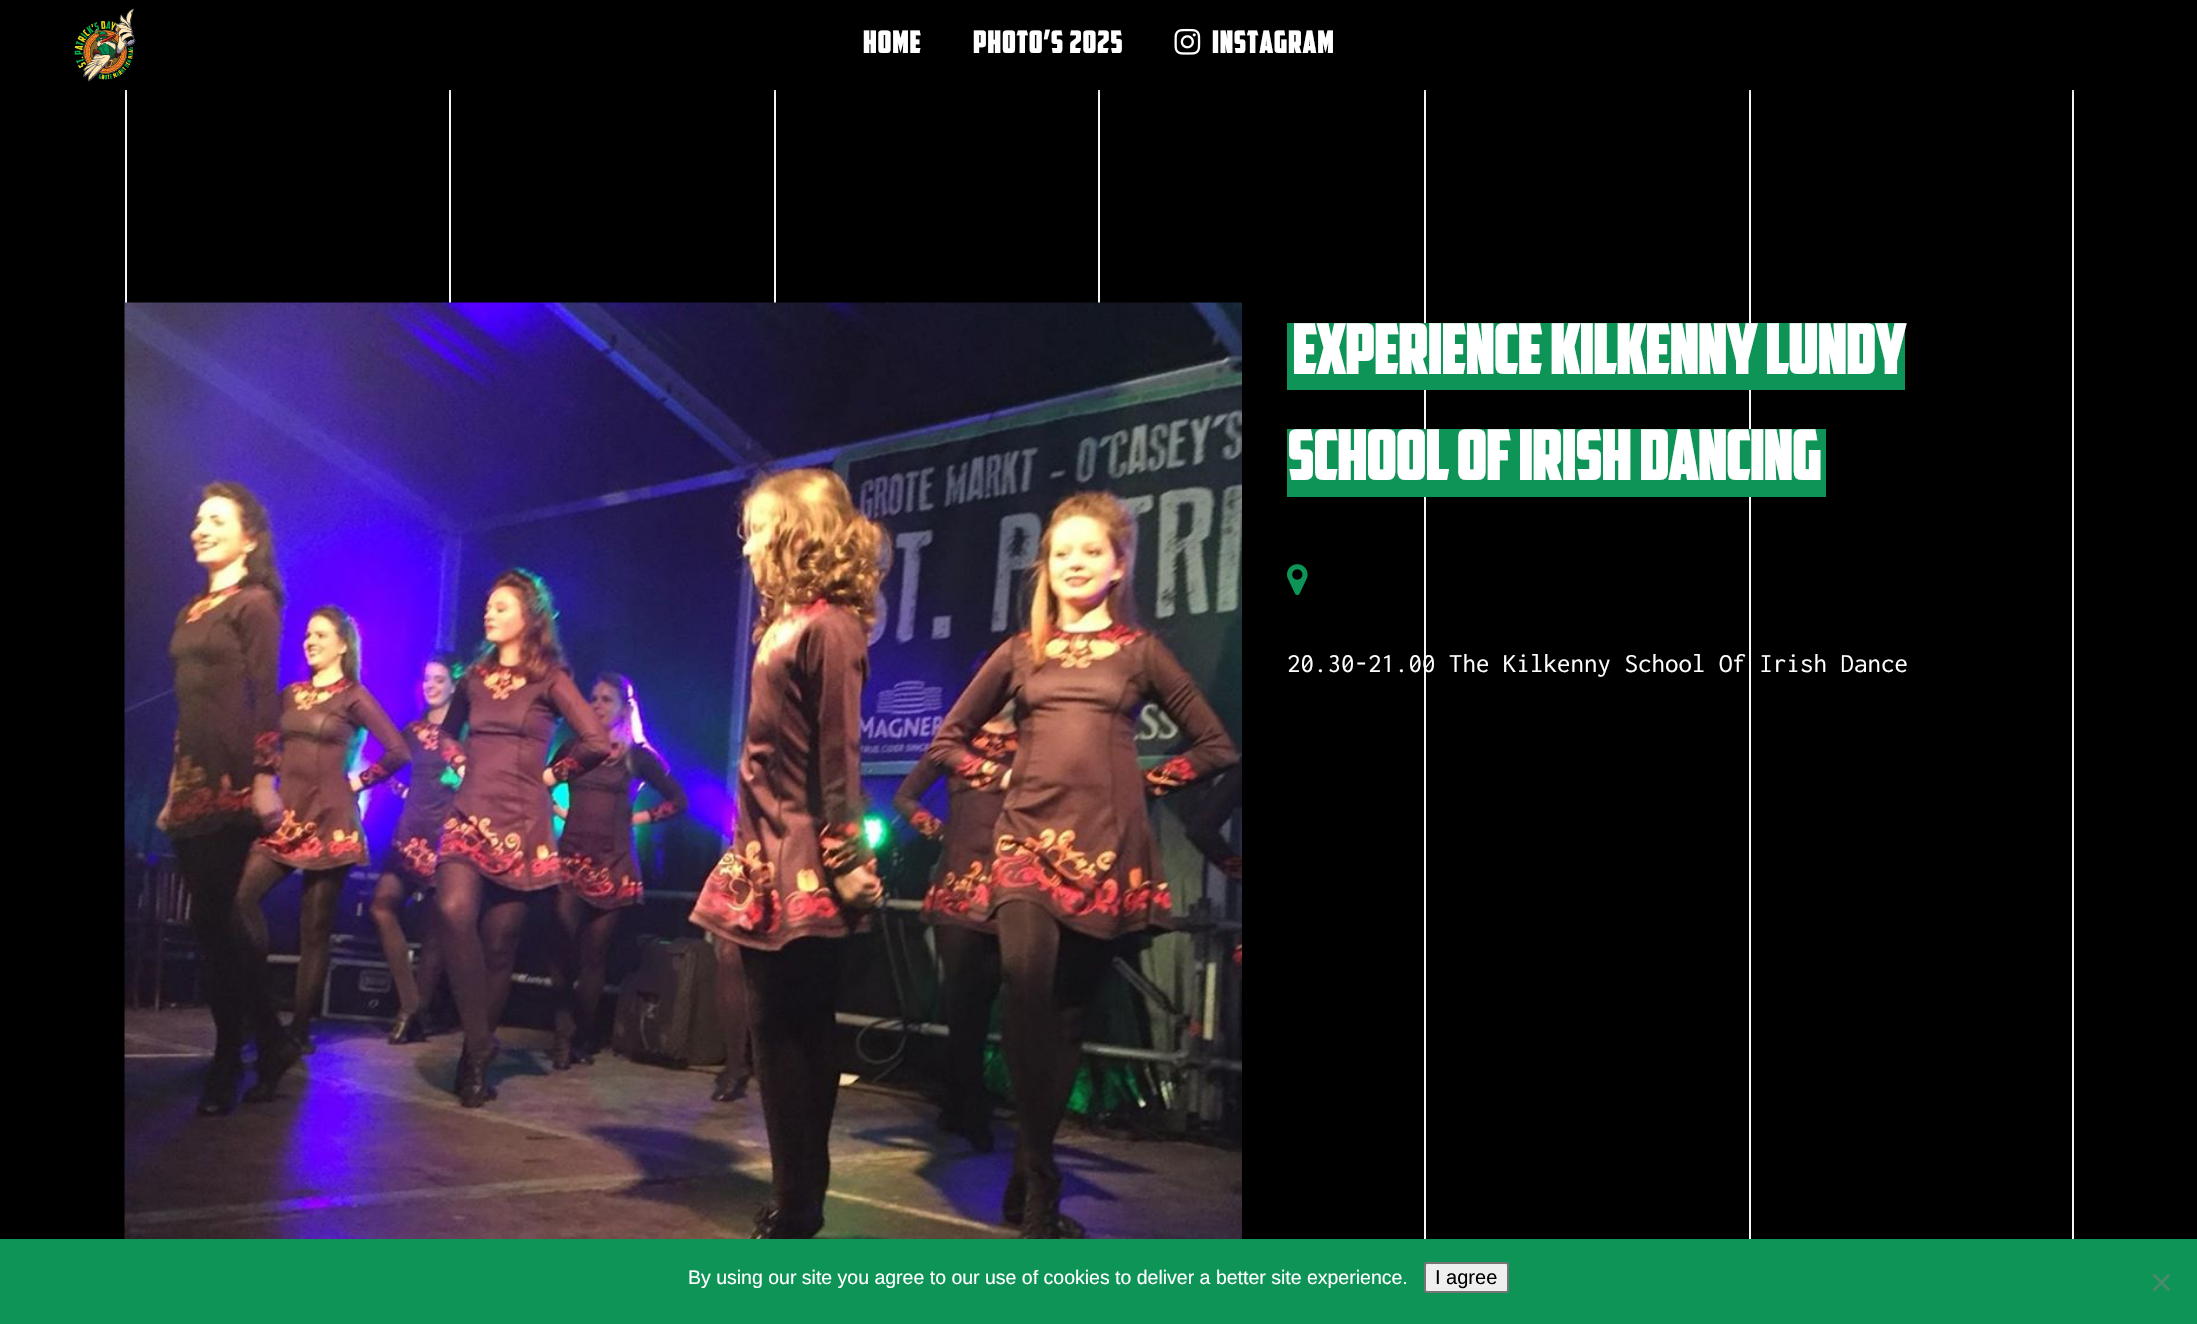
void draw(SkCanvas* canvas) {
	SkPaint fill;
	fill.setAntiAlias(true);
	auto makeFont = [&](const char* family, int weight, float size, bool italic = false) {
		SkFontStyle style(weight, SkFontStyle::kNormal_Width,
			italic ? SkFontStyle::kItalic_Slant : SkFontStyle::kUpright_Slant);
		SkFont result(fontMgr->matchFamilyStyle(family, style), size);
		result.setSubpixel(true);
		return result;
	};
	auto text = [&](const char* s, float x, float y, const SkFont& font) {
		canvas->drawString(s, x, y, font, fill);
	};
	auto spacedText = [&](const char* s, float x, float y, const SkFont& font, const SkPaint& ink, float letter, float word) {
		std::vector<SkGlyphID> glyphs(font.countText(s, strlen(s), SkTextEncoding::kUTF8));
		std::vector<float> xs(glyphs.size());
		font.textToGlyphs(s, strlen(s), SkTextEncoding::kUTF8, glyphs);
		font.getXPos(glyphs, xs, x);
		float extra = 0;
		for (size_t i = 0; i < glyphs.size(); i++) {
			xs[i] += extra;
			extra += letter + word * (glyphs[i] == font.unicharToGlyph(' '));
		}
		canvas->drawTextBlob(SkTextBlob::MakeFromPosHGlyphs(glyphs, xs, y, font), 0, 0, ink);
	};
	auto box = [&](float l, float t, float r, float b) {
		canvas->drawRect(SkRect::MakeLTRB(l, t, r, b), fill);
	};
	auto picture = [&](const char* path, float l, float t, float r, float b) {
		auto image = SkImages::DeferredFromEncodedData(SkData::MakeFromFileName(path));
		canvas->drawImageRect(image, SkRect::MakeLTRB(l, t, r, b), SkSamplingOptions());
	};
	canvas->clear(0xFF000000);
	fill.setColor(0xFFF4F5FA);
	box(125, 90, 127, 303);
	box(449, 90, 451, 303);
	box(774, 90, 776, 303);
	box(1098, 90, 1100, 303);
	box(1424, 90, 1426, 1239);
	box(2072, 90, 2074, 1239);
	box(1749, 90, 1751, 1239);
	fill.setColor(0x1C000000);
	fill.setMaskFilter(SkMaskFilter::MakeBlur(kNormal_SkBlurStyle, 2));
	canvas->drawRect(SkRect::MakeLTRB(0, 2, 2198, 92), fill);
	fill.setMaskFilter(nullptr);
	picture("image0.png", 74, 8, 136, 82);
	picture("image1.png", 1174, 28, 1201, 55);
	picture("image2.png", 124, 302, 1242, 1239);
	fill.setColor(0xFF0E9457);
	box(1287, 323, 1905, 390);
	box(1287, 429, 1826, 497);
	picture("image3.png", 1287, 564, 1308, 596);
	box(0, 1239, 2197, 1324);
	fill.setColor(0xFFEFEFEF);
	canvas->drawRoundRect(SkRect::MakeLTRB(1425, 1263, 1508, 1292), 2, 2, fill);
	fill.setStyle(SkPaint::kStroke_Style);
	fill.setStrokeWidth(2);
	fill.setColor(0xFF767676);
	canvas->drawRoundRect(SkRect::MakeLTRB(1425, 1263, 1508, 1292), 2, 2, fill);
	fill.setStyle(SkPaint::kFill_Style);
	fill.setColor(0xFF478A6C);
	canvas->drawPath(SkPathBuilder().moveTo(2168.5f, 1273.5f).lineTo(2170.5f, 1275.5f).lineTo(2154.5f, 1291.5f).lineTo(2152.5f, 1289.5f).close().detach(), fill);
	canvas->drawPath(SkPathBuilder().moveTo(2152.5f, 1275.5f).lineTo(2154.5f, 1273.5f).lineTo(2170.5f, 1289.5f).lineTo(2168.5f, 1291.5f).close().detach(), fill);
	auto font1 = makeFont("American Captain", 700, 30);
	fill.setColor(0xFFFFFFFF);
	spacedText("HOME", 863, 53, font1, fill, 1.5f, 0);
	spacedText("PHOTO’S 2025", 973, 53, font1, fill, 1.5f, 0);
	spacedText("INSTAGRAM", 1212, 53, font1, fill, 1.5f, 0);
	auto font2 = makeFont("American Captain", 700, 67.5f);
	text("EXPERIENCE KILKENNY LUNDY", 1292, 374, font2);
	text("SCHOOL OF IRISH DANCING", 1287, 480, font2);
	auto font3 = makeFont("Inconsolata", 400, 27);
	text("20.30-21.00 The Kilkenny School Of Irish Dance", 1287, 672, font3);
	auto font4 = makeFont("Liberation Sans", 400, 19.5f);
	text("By using our site you agree to our use of cookies to deliver a better site experience.", 688, 1284, font4);
	auto font5 = makeFont("Liberation Sans", 400, 20);
	fill.setColor(0xFF000000);
	text("I agree", 1435, 1284, font5);
}
